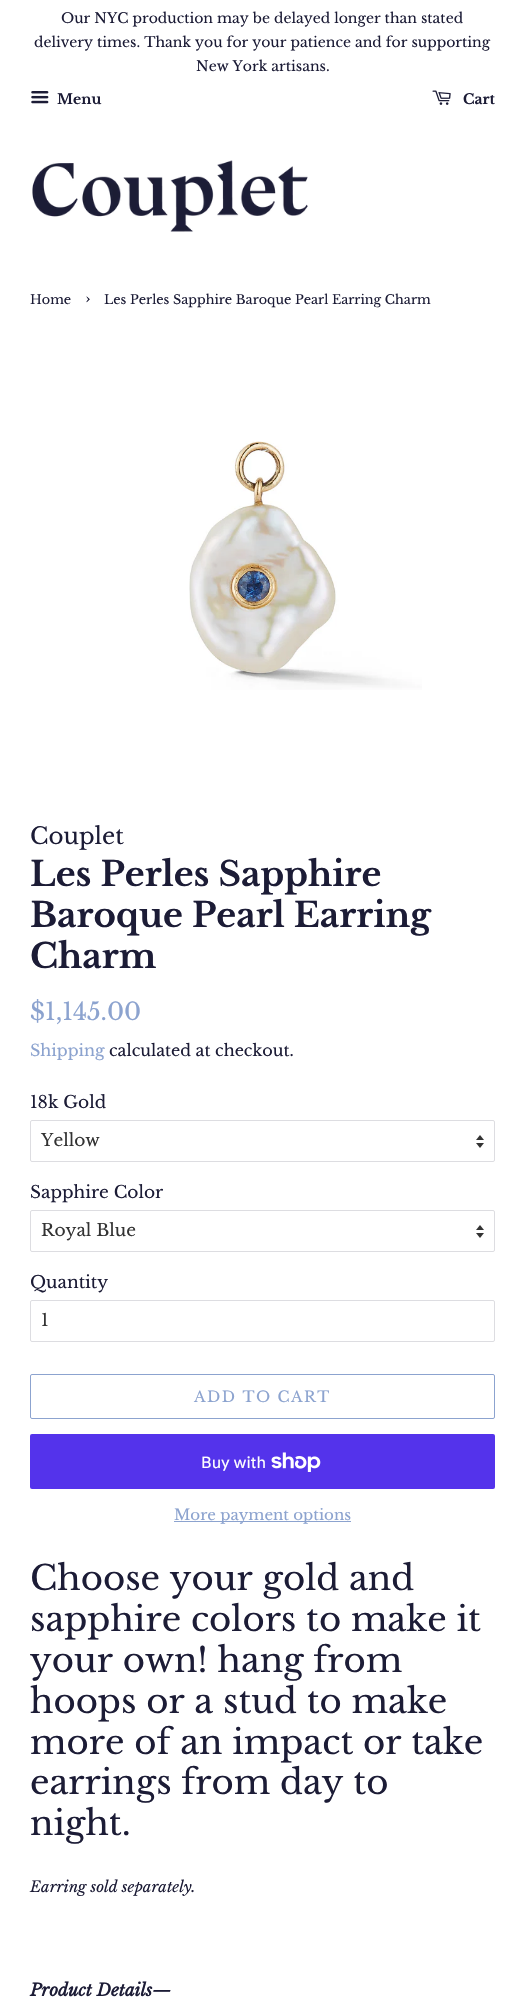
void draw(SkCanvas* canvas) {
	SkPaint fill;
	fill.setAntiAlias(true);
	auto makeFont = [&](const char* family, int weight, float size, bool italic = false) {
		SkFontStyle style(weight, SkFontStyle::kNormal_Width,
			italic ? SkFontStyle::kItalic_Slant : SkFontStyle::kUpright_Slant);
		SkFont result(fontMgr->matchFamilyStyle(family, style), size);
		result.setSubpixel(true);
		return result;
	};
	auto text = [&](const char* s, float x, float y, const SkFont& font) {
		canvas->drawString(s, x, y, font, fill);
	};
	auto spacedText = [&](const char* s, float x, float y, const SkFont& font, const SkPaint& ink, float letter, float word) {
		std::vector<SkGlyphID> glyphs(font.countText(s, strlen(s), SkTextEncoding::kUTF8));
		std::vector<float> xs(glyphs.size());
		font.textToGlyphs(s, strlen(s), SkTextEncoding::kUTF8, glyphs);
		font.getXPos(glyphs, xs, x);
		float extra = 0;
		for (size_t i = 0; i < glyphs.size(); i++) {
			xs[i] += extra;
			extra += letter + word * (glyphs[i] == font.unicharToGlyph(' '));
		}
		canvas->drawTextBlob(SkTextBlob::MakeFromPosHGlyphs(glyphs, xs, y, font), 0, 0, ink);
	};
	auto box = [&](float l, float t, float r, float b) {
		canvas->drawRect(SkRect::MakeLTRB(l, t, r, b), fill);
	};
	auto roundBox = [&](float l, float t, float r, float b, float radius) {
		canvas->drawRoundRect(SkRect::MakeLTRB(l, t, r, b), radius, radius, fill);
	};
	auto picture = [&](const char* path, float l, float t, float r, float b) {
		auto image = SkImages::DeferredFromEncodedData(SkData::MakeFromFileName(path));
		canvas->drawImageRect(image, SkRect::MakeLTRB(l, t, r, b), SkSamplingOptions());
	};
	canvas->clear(0xFFFFFFFF);
	picture("image0.png", 31, 91, 49, 104);
	picture("image1.png", 432, 90, 451, 105);
	picture("image2.png", 32, 160, 308, 232);
	picture("image3.png", 189, 441, 422, 690);
	picture("image4.png", 476, 1135, 484, 1148);
	fill.setStyle(SkPaint::kStroke_Style);
	fill.setStrokeWidth(1);
	fill.setColor(0xFFDDDDE1);
	canvas->drawRoundRect(SkRect::MakeLTRB(30.5f, 1120.5f, 494.5f, 1161.5f), 1.5f, 1.5f, fill);
	picture("image4.png", 476, 1225, 484, 1238);
	canvas->drawRoundRect(SkRect::MakeLTRB(30.5f, 1210.5f, 494.5f, 1251.5f), 1.5f, 1.5f, fill);
	canvas->drawRoundRect(SkRect::MakeLTRB(30.5f, 1300.5f, 494.5f, 1341.5f), 1.5f, 1.5f, fill);
	fill.setColor(0xFF8CA3CF);
	canvas->drawRoundRect(SkRect::MakeLTRB(30.5f, 1374.5f, 494.5f, 1418.5f), 1.5f, 1.5f, fill);
	fill.setStyle(SkPaint::kFill_Style);
	fill.setColor(0xFF5433EB);
	roundBox(30, 1434, 495, 1489, 2);
	picture("image5.png", 271, 1452, 321, 1472);
	fill.setColor(0xFF8CA3CF);
	box(174, 1521, 351, 1522);
	auto font1 = makeFont("Libre Baskerville", 400, 14);
	fill.setColor(0xFF1C1C36);
	text("Our NYC production may be delayed longer than stated", 61, 23, font1);
	text("delivery times. Thank you for your patience and for supporting", 34, 47, font1);
	text("New York artisans.", 196, 71, font1);
	auto font2 = makeFont("Libre Baskerville", 700, 14);
	text("Menu", 57, 104, font2);
	text("Cart", 463, 104, font2);
	auto font3 = makeFont("Libre Baskerville", 400, 12.75f);
	text("Home", 30, 304, font3);
	auto font4 = makeFont("Libre Baskerville", 400, 18);
	text("›", 85, 304, font4);
	text("Les Perles Sapphire Baroque Pearl Earring Charm", 104, 304, font3);
	auto font5 = makeFont("Libre Baskerville", 400, 23);
	text("Couplet", 30, 844, font5);
	auto font6 = makeFont("Libre Baskerville", 700, 34);
	text("Les Perles Sapphire", 30, 886, font6);
	text("Baroque Pearl Earring", 30, 927, font6);
	text("Charm", 30, 968, font6);
	auto font7 = makeFont("Libre Baskerville", 400, 24);
	fill.setColor(0xFF8CA3CF);
	text("$1,145.00", 30, 1020, font7);
	auto font8 = makeFont("Libre Baskerville", 400, 16);
	text("Shipping", 30, 1056, font8);
	fill.setColor(0xFF1C1C36);
	text("calculated at checkout.", 109, 1056, font8);
	auto font9 = makeFont("Libre Baskerville", 400, 17);
	text("18k Gold", 30, 1108, font9);
	fill.setColor(0xFF333333);
	text("Yellow", 41, 1146, font9);
	fill.setColor(0xFF1C1C36);
	text("Sapphire Color", 30, 1198, font9);
	fill.setColor(0xFF333333);
	text("Royal Blue", 41, 1236, font9);
	fill.setColor(0xFF1C1C36);
	text("Quantity", 30, 1288, font9);
	fill.setColor(0xFF333333);
	text("1", 41, 1326, font9);
	auto font10 = makeFont("Libre Baskerville", 400, 15);
	fill.setColor(0xFF8CA3CF);
	spacedText("ADD TO CART", 194, 1402, font10, fill, 1.5f, 0);
	auto font11 = makeFont("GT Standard", 400, 16);
	fill.setColor(0xFFFFFFFF);
	text("Buy with", 201, 1468, font11);
	fill.setColor(0xFF8CA3CF);
	text("More payment options", 174, 1520, font10);
	auto font12 = makeFont("Libre Baskerville", 400, 34);
	fill.setColor(0xFF1C1C36);
	text("Choose your gold and", 30, 1590, font12);
	text("sapphire colors to make it", 30, 1631, font12);
	text("your own! hang from", 30, 1672, font12);
	text("hoops or a stud to make", 30, 1713, font12);
	text("more of an impact or take", 30, 1754, font12);
	text("earrings from day to", 30, 1794, font12);
	text("night.", 30, 1835, font12);
	auto font13 = makeFont("Libre Baskerville", 400, 15, true);
	text("Earring sold separately.", 30, 1892, font13);
	auto font14 = makeFont("Libre Baskerville", 700, 17, true);
	text("Product Details—", 30, 1996, font14);
}
